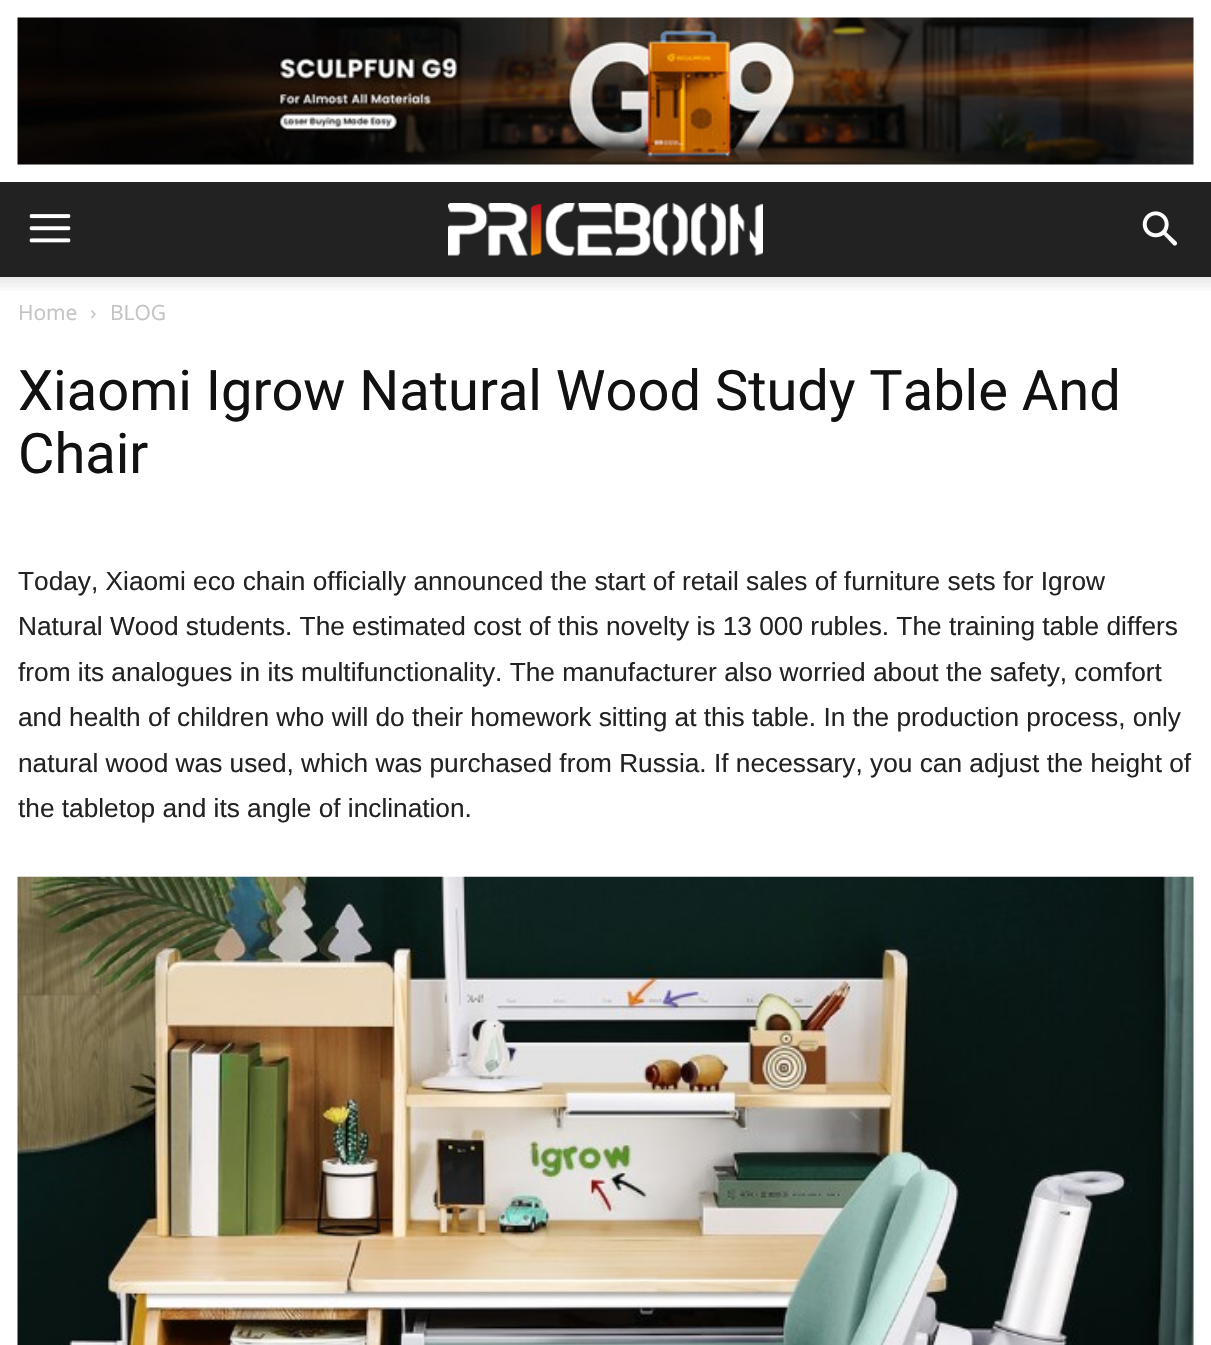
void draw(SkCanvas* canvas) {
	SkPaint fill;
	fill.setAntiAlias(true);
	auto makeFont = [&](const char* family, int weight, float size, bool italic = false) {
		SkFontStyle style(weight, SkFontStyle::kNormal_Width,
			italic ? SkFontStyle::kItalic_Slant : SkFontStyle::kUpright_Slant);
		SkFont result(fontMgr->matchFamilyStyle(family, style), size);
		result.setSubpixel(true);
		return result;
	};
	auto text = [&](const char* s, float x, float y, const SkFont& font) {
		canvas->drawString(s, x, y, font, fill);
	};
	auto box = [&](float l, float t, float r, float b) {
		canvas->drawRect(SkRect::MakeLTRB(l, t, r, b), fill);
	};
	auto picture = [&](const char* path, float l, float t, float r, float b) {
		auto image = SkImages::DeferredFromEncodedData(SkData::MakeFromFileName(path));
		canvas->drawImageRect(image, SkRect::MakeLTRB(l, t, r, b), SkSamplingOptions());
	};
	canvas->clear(0xFFFFFFFF);
	picture("image0.png", 17, 17, 1194, 165);
	fill.setColor(0xFF222222);
	box(0, 182, 1211, 277);
	picture("image1.png", 29, 214, 71, 243);
	picture("image2.png", 448, 203, 763, 256);
	picture("image3.png", 1142, 211, 1178, 246);
	picture("image4.png", 0, 277, 1211, 291);
	picture("image5.png", 91, 310, 96, 319);
	picture("image6.png", 17, 876, 1194, 1345);
	auto font1 = makeFont("Open Sans", 400, 21);
	fill.setColor(0xFFC3C3C3);
	text("Home", 18, 320, font1);
	text("BLOG", 110, 320, font1);
	auto font2 = makeFont("Roboto", 400, 56);
	fill.setColor(0xFF111111);
	text("Xiaomi Igrow Natural Wood Study Table And", 18, 410, font2);
	text("Chair", 18, 473, font2);
	auto font3 = makeFont("Liberation Sans", 400, 26.25f);
	fill.setColor(0xFF222222);
	text("Today, Xiaomi eco chain officially announced the start of retail sales of furniture sets for Igrow", 18, 590, font3);
	text("Natural Wood students. The estimated cost of this novelty is 13 000 rubles. The training table differs", 18, 635, font3);
	text("from its analogues in its multifunctionality. The manufacturer also worried about the safety, comfort", 18, 681, font3);
	text("and health of children who will do their homework sitting at this table. In the production process, only", 18, 726, font3);
	text("natural wood was used, which was purchased from Russia. If necessary, you can adjust the height of", 18, 772, font3);
	text("the tabletop and its angle of inclination.", 18, 817, font3);
}
